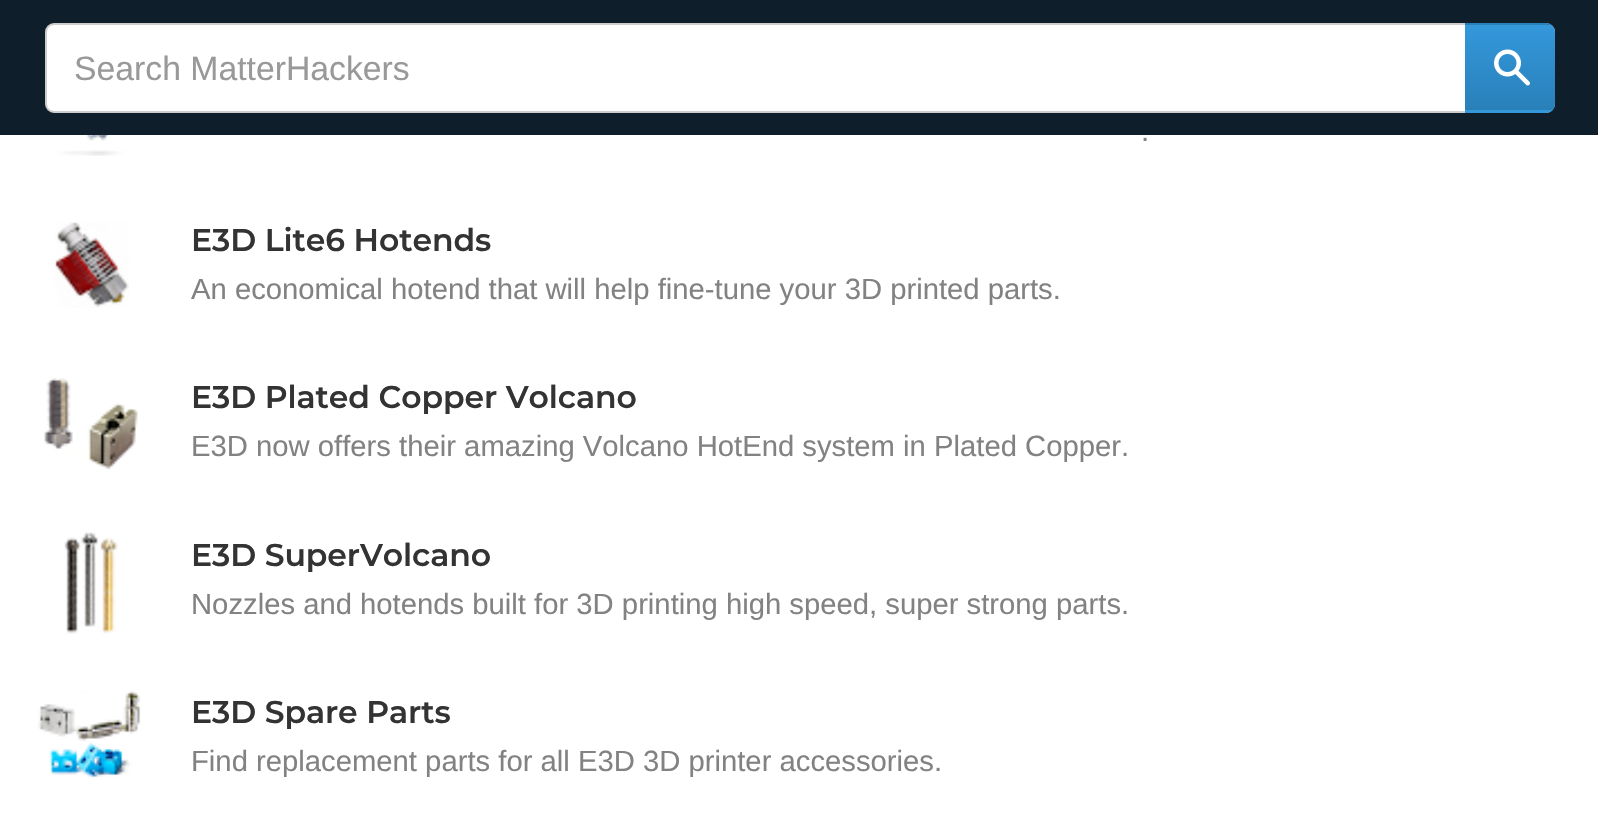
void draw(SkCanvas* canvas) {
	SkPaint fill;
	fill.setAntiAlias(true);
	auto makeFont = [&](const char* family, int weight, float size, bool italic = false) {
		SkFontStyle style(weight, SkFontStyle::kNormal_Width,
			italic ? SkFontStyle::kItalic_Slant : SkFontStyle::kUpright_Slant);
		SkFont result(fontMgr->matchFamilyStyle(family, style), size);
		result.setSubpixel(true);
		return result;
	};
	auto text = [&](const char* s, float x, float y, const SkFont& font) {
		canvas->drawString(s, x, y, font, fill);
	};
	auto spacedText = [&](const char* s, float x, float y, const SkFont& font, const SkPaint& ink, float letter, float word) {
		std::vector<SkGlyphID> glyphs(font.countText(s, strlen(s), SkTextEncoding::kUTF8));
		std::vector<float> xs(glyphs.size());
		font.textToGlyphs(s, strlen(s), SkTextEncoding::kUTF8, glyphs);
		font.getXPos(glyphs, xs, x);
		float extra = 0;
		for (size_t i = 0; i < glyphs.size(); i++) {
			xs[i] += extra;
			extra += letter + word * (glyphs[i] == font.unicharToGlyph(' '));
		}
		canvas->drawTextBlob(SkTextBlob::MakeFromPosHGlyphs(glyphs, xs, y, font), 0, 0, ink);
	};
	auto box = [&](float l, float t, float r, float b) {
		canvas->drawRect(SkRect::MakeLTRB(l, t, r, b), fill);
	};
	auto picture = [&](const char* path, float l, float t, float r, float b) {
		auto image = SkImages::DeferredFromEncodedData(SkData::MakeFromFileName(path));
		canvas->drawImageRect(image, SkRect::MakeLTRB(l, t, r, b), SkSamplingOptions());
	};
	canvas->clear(0xFFFFFFFF);
	fill.setColor(0xFF0E1E2B);
	box(0, 0, 1598, 135);
	fill.setColor(0xFFFFFFFF);
	canvas->drawRoundRect(SkRect::MakeLTRB(46, 24, 1554, 112), 8, 8, fill);
	fill.setStyle(SkPaint::kStroke_Style);
	fill.setStrokeWidth(2);
	fill.setColor(0xFFCCCCCC);
	canvas->drawRoundRect(SkRect::MakeLTRB(46, 24, 1554, 112), 8, 8, fill);
	canvas->save();
	canvas->clipPath(SkPathBuilder().moveTo(1465, 23).lineTo(1546, 23).cubicTo(1551, 23, 1555, 27, 1555, 32).lineTo(1555, 104).cubicTo(1555, 109, 1551, 113, 1546, 113).lineTo(1465, 113).close().detach(), true);
	fill.setStyle(SkPaint::kFill_Style);
	{
		const SkColor colors[] = {0xFF3498DB, 0xFF2980B9};
		const float stops[] = {0, 1};
		const SkPoint ends[] = {{1510, -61}, {1510, 25}};
		fill.setShader(SkGradientShader::MakeLinear(ends, colors, stops, 2, SkTileMode::kClamp));
		fill.setAlpha(255);
	}
	box(1465, 23, 1555, 25);
	{
		const SkColor colors[] = {0xFF3498DB, 0xFF2980B9};
		const float stops[] = {0, 1};
		const SkPoint ends[] = {{1510, 25}, {1510, 110}};
		fill.setShader(SkGradientShader::MakeLinear(ends, colors, stops, 2, SkTileMode::kClamp));
		fill.setAlpha(255);
	}
	box(1465, 25, 1555, 110);
	{
		const SkColor colors[] = {0xFF3498DB, 0xFF2980B9};
		const float stops[] = {0, 1};
		const SkPoint ends[] = {{1510, 110}, {1510, 196}};
		fill.setShader(SkGradientShader::MakeLinear(ends, colors, stops, 2, SkTileMode::kClamp));
		fill.setAlpha(255);
	}
	box(1465, 110, 1555, 113);
	canvas->restore();
	picture("image0.png", 1494, 49, 1530, 86);
	picture("image1.png", 52, 135, 134, 156);
	picture("image2.png", 55, 222, 129, 308);
	picture("image3.png", 44, 378, 138, 469);
	picture("image4.png", 64, 532, 118, 634);
	picture("image5.png", 38, 690, 141, 778);
	auto font1 = makeFont("Liberation Sans", 400, 33.75f);
	fill.setShader(nullptr);
	fill.setColor(0xFF999999);
	text("Search MatterHackers", 74, 80, font1);
	auto font2 = makeFont("Liberation Sans", 400, 29.25f);
	fill.setColor(0xFF828282);
	text(".", 1141, 141, font2);
	auto font3 = makeFont("Montserrat", 600, 31.5f);
	fill.setColor(0xFF333333);
	spacedText("E3D Lite6 Hotends", 191, 251, font3, fill, -0.1f, 0);
	fill.setColor(0xFF828282);
	text("An economical hotend that will help fine-tune your 3D printed parts.", 191, 299, font2);
	fill.setColor(0xFF333333);
	spacedText("E3D Plated Copper Volcano", 191, 408, font3, fill, -0.1f, 0);
	fill.setColor(0xFF828282);
	text("E3D now offers their amazing Volcano HotEnd system in Plated Copper.", 191, 456, font2);
	fill.setColor(0xFF333333);
	spacedText("E3D SuperVolcano", 191, 566, font3, fill, -0.1f, 0);
	fill.setColor(0xFF828282);
	text("Nozzles and hotends built for 3D printing high speed, super strong parts.", 191, 614, font2);
	fill.setColor(0xFF333333);
	spacedText("E3D Spare Parts", 191, 723, font3, fill, -0.1f, 0);
	fill.setColor(0xFF828282);
	text("Find replacement parts for all E3D 3D printer accessories.", 191, 771, font2);
}
